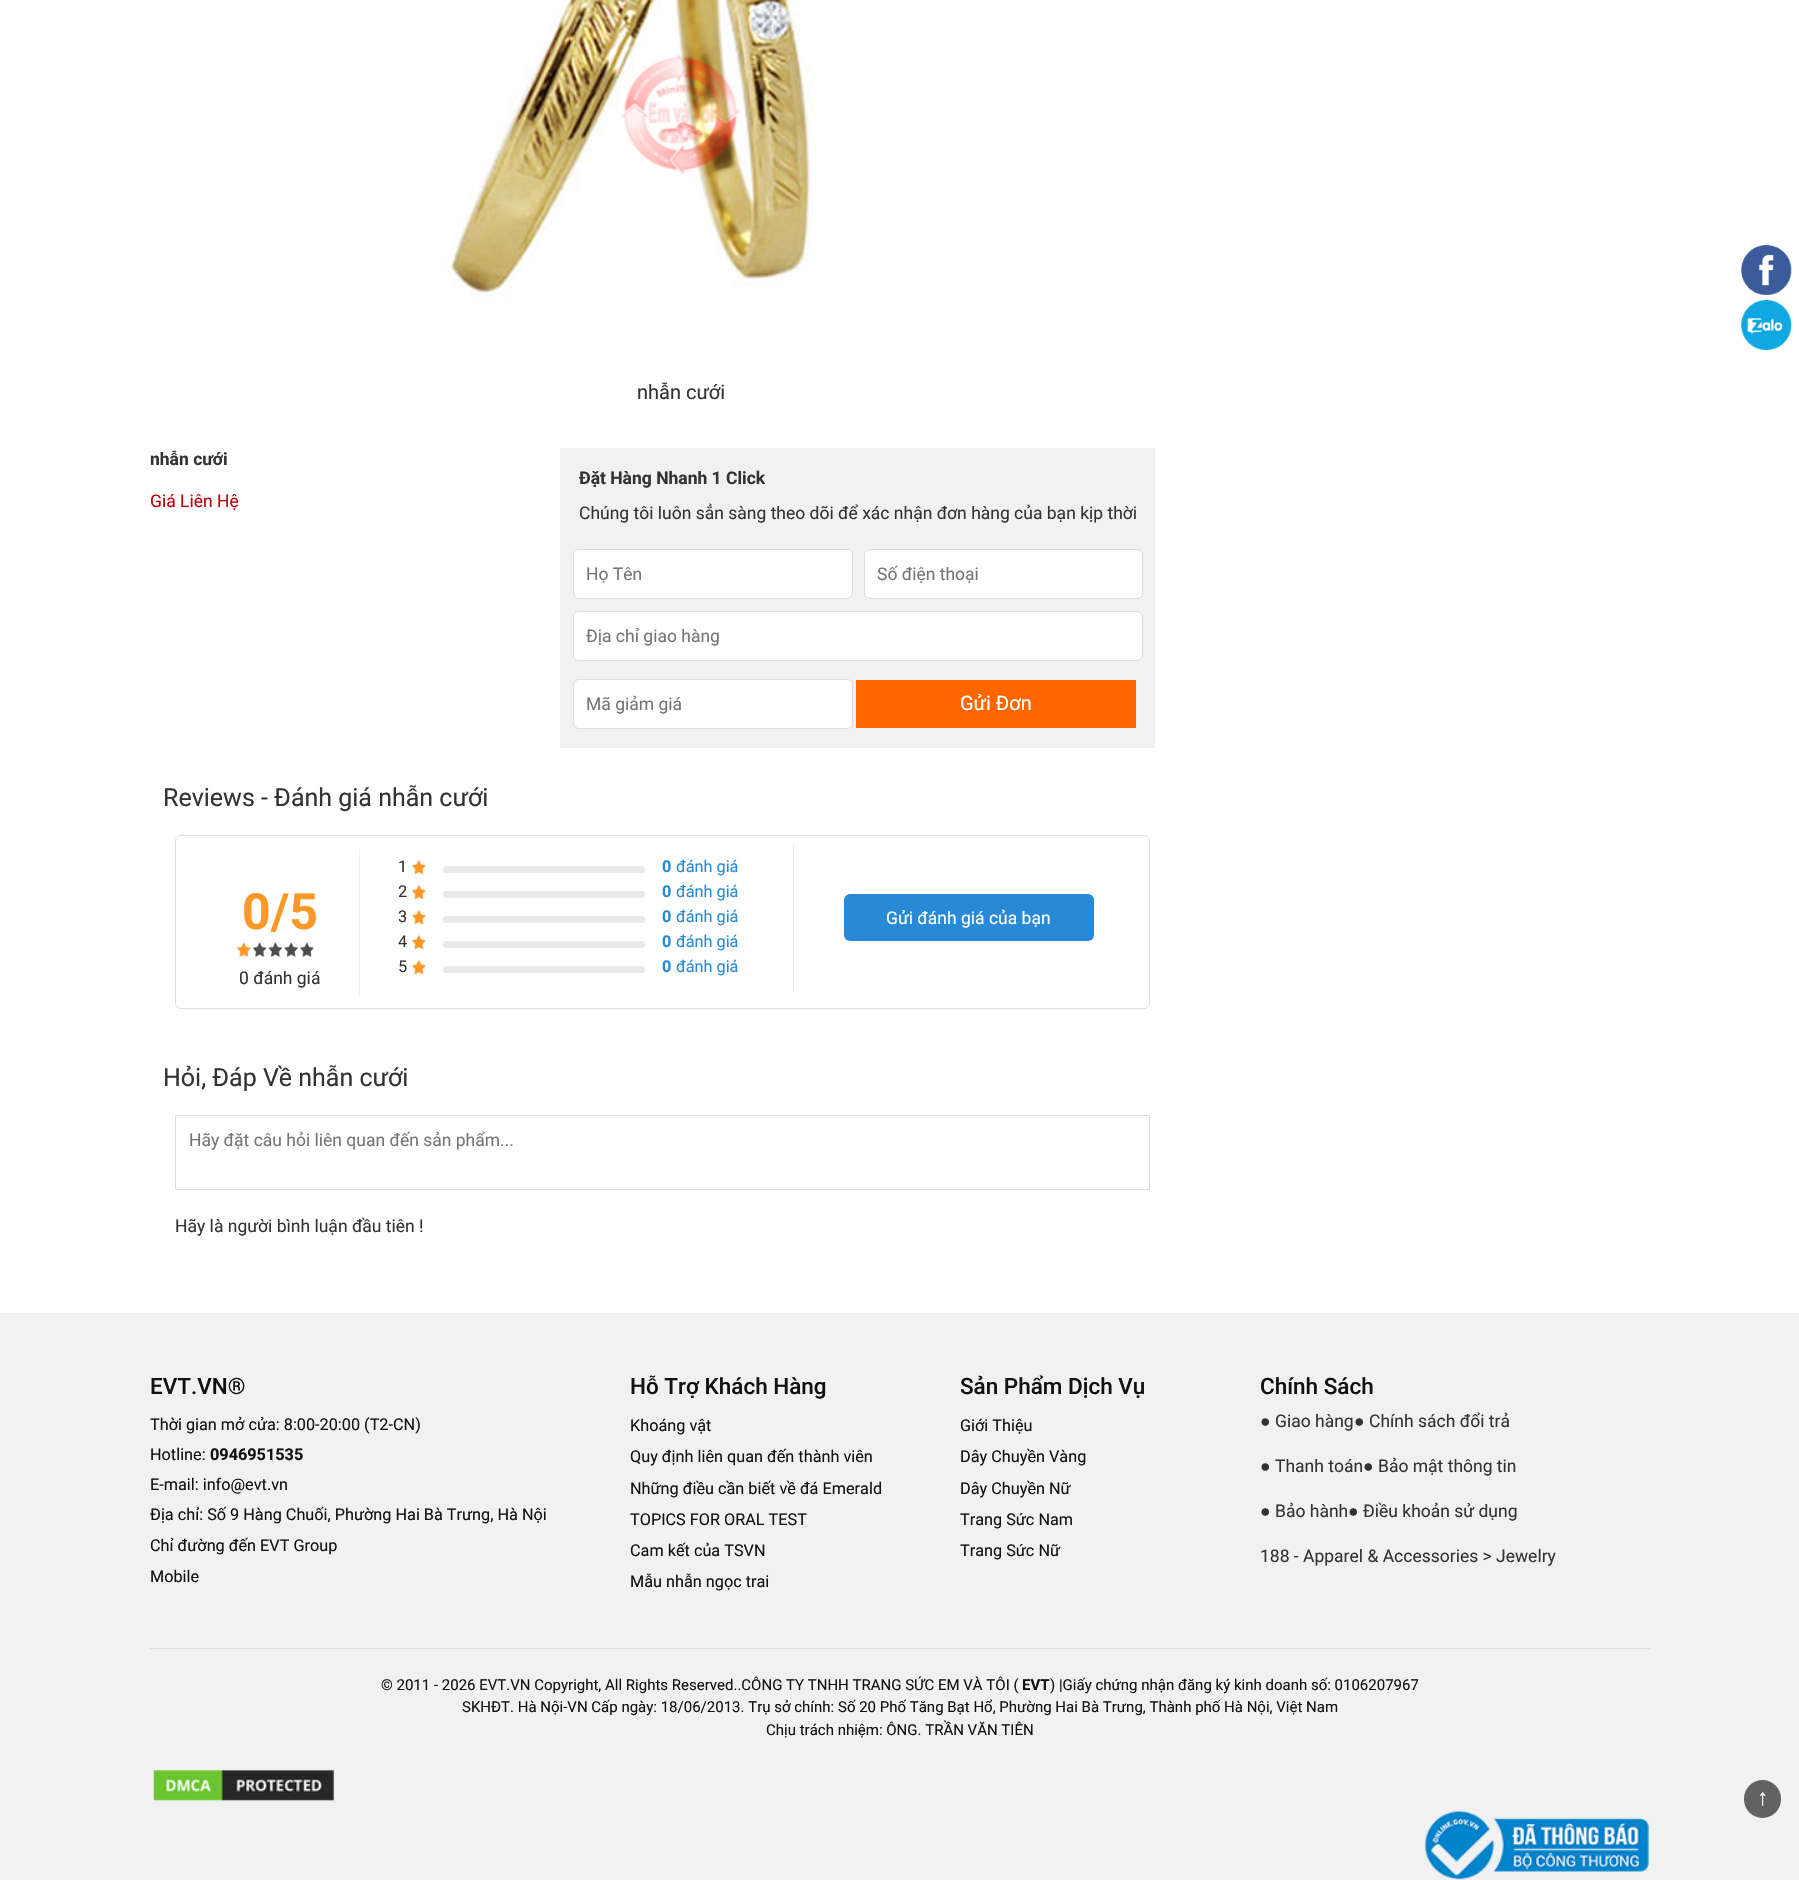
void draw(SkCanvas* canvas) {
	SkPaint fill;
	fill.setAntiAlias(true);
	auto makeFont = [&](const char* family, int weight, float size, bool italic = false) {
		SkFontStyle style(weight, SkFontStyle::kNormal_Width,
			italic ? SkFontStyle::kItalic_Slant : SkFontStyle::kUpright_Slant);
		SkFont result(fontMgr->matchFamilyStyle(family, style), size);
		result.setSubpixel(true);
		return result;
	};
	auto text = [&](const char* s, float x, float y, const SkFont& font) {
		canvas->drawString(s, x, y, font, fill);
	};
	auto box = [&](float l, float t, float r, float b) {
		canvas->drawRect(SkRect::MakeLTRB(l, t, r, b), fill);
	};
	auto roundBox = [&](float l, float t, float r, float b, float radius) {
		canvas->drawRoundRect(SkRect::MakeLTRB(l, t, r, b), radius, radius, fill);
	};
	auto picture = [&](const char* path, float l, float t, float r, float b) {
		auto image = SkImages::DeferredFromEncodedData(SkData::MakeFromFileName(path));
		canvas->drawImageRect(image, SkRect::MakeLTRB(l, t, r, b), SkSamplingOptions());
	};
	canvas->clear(0xFFFFFFFF);
	picture("image0.png", 441, 0, 814, 300);
	fill.setColor(0xFFF1F1F1);
	box(560, 448, 1155, 748);
	fill.setColor(0xFFFFFFFF);
	canvas->drawRoundRect(SkRect::MakeLTRB(573.5f, 549.5f, 852.5f, 598.5f), 5.5f, 5.5f, fill);
	fill.setStyle(SkPaint::kStroke_Style);
	fill.setStrokeWidth(1);
	fill.setColor(0xFFDDDDDD);
	canvas->drawRoundRect(SkRect::MakeLTRB(573.5f, 549.5f, 852.5f, 598.5f), 5.5f, 5.5f, fill);
	fill.setStyle(SkPaint::kFill_Style);
	fill.setColor(0xFFFFFFFF);
	canvas->drawRoundRect(SkRect::MakeLTRB(864.5f, 549.5f, 1142.5f, 598.5f), 5.5f, 5.5f, fill);
	fill.setStyle(SkPaint::kStroke_Style);
	fill.setColor(0xFFDDDDDD);
	canvas->drawRoundRect(SkRect::MakeLTRB(864.5f, 549.5f, 1142.5f, 598.5f), 5.5f, 5.5f, fill);
	fill.setStyle(SkPaint::kFill_Style);
	fill.setColor(0xFFFFFFFF);
	canvas->drawRoundRect(SkRect::MakeLTRB(573.5f, 611.5f, 1142.5f, 660.5f), 5.5f, 5.5f, fill);
	fill.setStyle(SkPaint::kStroke_Style);
	fill.setColor(0xFFDDDDDD);
	canvas->drawRoundRect(SkRect::MakeLTRB(573.5f, 611.5f, 1142.5f, 660.5f), 5.5f, 5.5f, fill);
	fill.setStyle(SkPaint::kFill_Style);
	fill.setColor(0xFFFFFFFF);
	canvas->drawRoundRect(SkRect::MakeLTRB(573.5f, 679.5f, 852.5f, 728.5f), 5.5f, 5.5f, fill);
	fill.setStyle(SkPaint::kStroke_Style);
	fill.setColor(0xFFDDDDDD);
	canvas->drawRoundRect(SkRect::MakeLTRB(573.5f, 679.5f, 852.5f, 728.5f), 5.5f, 5.5f, fill);
	fill.setStyle(SkPaint::kFill_Style);
	fill.setColor(0xFFFF6600);
	box(856, 680, 1136, 728);
	fill.setStyle(SkPaint::kStroke_Style);
	fill.setColor(0xFFDDDDDD);
	canvas->drawRoundRect(SkRect::MakeLTRB(175.5f, 835.5f, 1149.5f, 1008.5f), 5.5f, 5.5f, fill);
	fill.setStyle(SkPaint::kFill_Style);
	fill.setColor(0xFFEEEEEE);
	box(359, 849, 360, 995);
	picture("image1.png", 237, 942, 314, 957);
	box(793, 843, 794, 993);
	picture("image2.png", 412, 860, 426, 875);
	fill.setColor(0xFFE9E9E9);
	roundBox(443, 866, 645, 873, 3.5f);
	picture("image2.png", 412, 885, 426, 900);
	roundBox(443, 891, 645, 898, 3.5f);
	picture("image2.png", 412, 910, 426, 925);
	roundBox(443, 916, 645, 923, 3.5f);
	picture("image2.png", 412, 935, 426, 950);
	roundBox(443, 941, 645, 948, 3.5f);
	picture("image2.png", 412, 960, 426, 975);
	roundBox(443, 966, 645, 973, 3.5f);
	fill.setColor(0xFF288AD6);
	roundBox(844, 894, 1094, 941, 6);
	fill.setStyle(SkPaint::kStroke_Style);
	fill.setColor(0xFFDDDDDD);
	canvas->drawRect(SkRect::MakeLTRB(175.5f, 1115.5f, 1149.5f, 1189.5f), fill);
	fill.setStyle(SkPaint::kFill_Style);
	fill.setColor(0xFFF1F1F1);
	box(0, 1313, 1799, 1880);
	picture("image3.png", 1741, 245, 1792, 295);
	picture("image4.png", 1741, 300, 1792, 350);
	fill.setColor(0xFFDDDDDD);
	box(150, 1648, 1650, 1649);
	picture("image5.png", 153, 1770, 334, 1801);
	picture("image6.png", 1424, 1811, 1649, 1880);
	fill.setColor(0xFF626262);
	roundBox(1744, 1780, 1781, 1818, 18.5f);
	auto font1 = makeFont("Roboto", 400, 20);
	fill.setColor(0xFF333333);
	text("nhẫn cưới", 637, 399, font1);
	auto font2 = makeFont("Roboto", 700, 17.5f);
	text("nhẫn cưới", 150, 465, font2);
	auto font3 = makeFont("Roboto", 400, 17.5f);
	fill.setColor(0xFFC1000C);
	text("Giá Liên Hệ", 150, 507, font3);
	fill.setColor(0xFF333333);
	text("Đặt Hàng Nhanh 1 Click", 579, 484, font2);
	text("Chúng tôi luôn sẳn sàng theo dõi để xác nhận đơn hàng của bạn kịp thời", 579, 519, font3);
	fill.setColor(0xFF757575);
	text("Họ Tên", 586, 580, font3);
	text("Số điện thoại", 877, 580, font3);
	text("Địa chỉ giao hàng", 586, 642, font3);
	text("Mã giảm giá", 586, 710, font3);
	fill.setColor(0xFFFFFFFF);
	text("Gửi Đơn", 960, 710, font1);
	auto font4 = makeFont("Roboto", 400, 25);
	fill.setColor(0xFF333333);
	text("Reviews - Đánh giá nhẫn cưới", 163, 806, font4);
	auto font5 = makeFont("Roboto", 700, 50);
	fill.setColor(0xFFFD9727);
	text("0/5", 242, 929, font5);
	fill.setColor(0xFF333333);
	text("0 đánh giá", 239, 984, font3);
	auto font6 = makeFont("Roboto", 400, 16.25f);
	text("1", 398, 872, font6);
	auto font7 = makeFont("Roboto", 700, 16.25f);
	fill.setColor(0xFF288AD6);
	text("0", 662, 872, font7);
	text("đánh giá", 676, 872, font6);
	fill.setColor(0xFF333333);
	text("2", 398, 897, font6);
	fill.setColor(0xFF288AD6);
	text("0", 662, 897, font7);
	text("đánh giá", 676, 897, font6);
	fill.setColor(0xFF333333);
	text("3", 398, 922, font6);
	fill.setColor(0xFF288AD6);
	text("0", 662, 922, font7);
	text("đánh giá", 676, 922, font6);
	fill.setColor(0xFF333333);
	text("4", 398, 947, font6);
	fill.setColor(0xFF288AD6);
	text("0", 662, 947, font7);
	text("đánh giá", 676, 947, font6);
	fill.setColor(0xFF333333);
	text("5", 398, 972, font6);
	fill.setColor(0xFF288AD6);
	text("0", 662, 972, font7);
	text("đánh giá", 676, 972, font6);
	fill.setColor(0xFFFFFFFF);
	text("Gửi đánh giá của bạn", 886, 924, font3);
	fill.setColor(0xFF333333);
	text("Hỏi, Đáp Về nhẫn cưới", 163, 1086, font4);
	fill.setColor(0xFF757575);
	text("Hãy đặt câu hỏi liên quan đến sản phẩm...", 189, 1146, font3);
	fill.setColor(0xFF333333);
	text("Hãy là người bình luận đầu tiên !", 175, 1232, font3);
	auto font8 = makeFont("Roboto", 500, 22.5f);
	fill.setColor(0xFF111111);
	text("EVT.VN®", 150, 1394, font8);
	text("Thời gian mở cửa: 8:00-20:00 (T2-CN)", 150, 1430, font6);
	text("Hotline:", 150, 1460, font6);
	text("0946951535", 210, 1460, font7);
	text("E-mail: info@evt.vn", 150, 1490, font6);
	text("Địa chỉ: Số 9 Hàng Chuối, Phường Hai Bà Trưng, Hà Nội", 150, 1520, font6);
	text("Chỉ đường đến EVT Group", 150, 1551, font6);
	text("Mobile", 150, 1582, font6);
	text("Hỗ Trợ Khách Hàng", 630, 1394, font8);
	text("Khoáng vật", 630, 1431, font6);
	text("Quy định liên quan đến thành viên", 630, 1462, font6);
	text("Những điều cần biết về đá Emerald", 630, 1494, font6);
	text("TOPICS FOR ORAL TEST", 630, 1525, font6);
	text("Cam kết của TSVN", 630, 1556, font6);
	text("Mẫu nhẫn ngọc trai", 630, 1587, font6);
	text("Sản Phẩm Dịch Vụ", 960, 1394, font8);
	text("Giới Thiệu", 960, 1431, font6);
	text("Dây Chuyền Vàng", 960, 1462, font6);
	text("Dây Chuyền Nữ", 960, 1494, font6);
	text("Trang Sức Nam", 960, 1525, font6);
	text("Trang Sức Nữ", 960, 1556, font6);
	text("Chính Sách", 1260, 1394, font8);
	auto font9 = makeFont("Liberation Sans", 400, 17.5f);
	fill.setColor(0xFF333333);
	text("●", 1260, 1427, font9);
	text("Giao hàng", 1275, 1427, font3);
	text("●", 1354, 1427, font9);
	text("Chính sách đổi trả", 1369, 1427, font3);
	text("●", 1260, 1472, font9);
	text("Thanh toán", 1275, 1472, font3);
	text("●", 1363, 1472, font9);
	text("Bảo mật thông tin", 1378, 1472, font3);
	text("●", 1260, 1517, font9);
	text("Bảo hành", 1275, 1517, font3);
	text("●", 1348, 1517, font9);
	text("Điều khoản sử dụng", 1363, 1517, font3);
	text("188 - Apparel & Accessories > Jewelry", 1260, 1562, font3);
	auto font10 = makeFont("Roboto", 400, 15);
	fill.setColor(0xFF111111);
	text("© 2011 - 2026 EVT.VN Copyright, All Rights Reserved..CÔNG TY TNHH TRANG SỨC EM VÀ TÔI (", 381, 1690, font10);
	auto font11 = makeFont("Roboto", 700, 15);
	text("EVT", 1022, 1690, font11);
	text(") |Giấy chứng nhận đăng ký kinh doanh số: 0106207967", 1050, 1690, font10);
	text("SKHĐT. Hà Nội-VN Cấp ngày: 18/06/2013. Trụ sở chính: Số 20 Phố Tăng Bạt Hổ, Phường Hai Bà Trưng, Thành phố Hà Nội, Việt Nam", 462, 1712, font10);
	text("Chịu trách nhiệm: ÔNG. TRẦN VĂN TIÊN", 766, 1735, font10);
	auto font12 = makeFont("Liberation Sans", 400, 22.5f);
	fill.setColor(0xFFFFFFFF);
	text("↑", 1757, 1805, font12);
}
